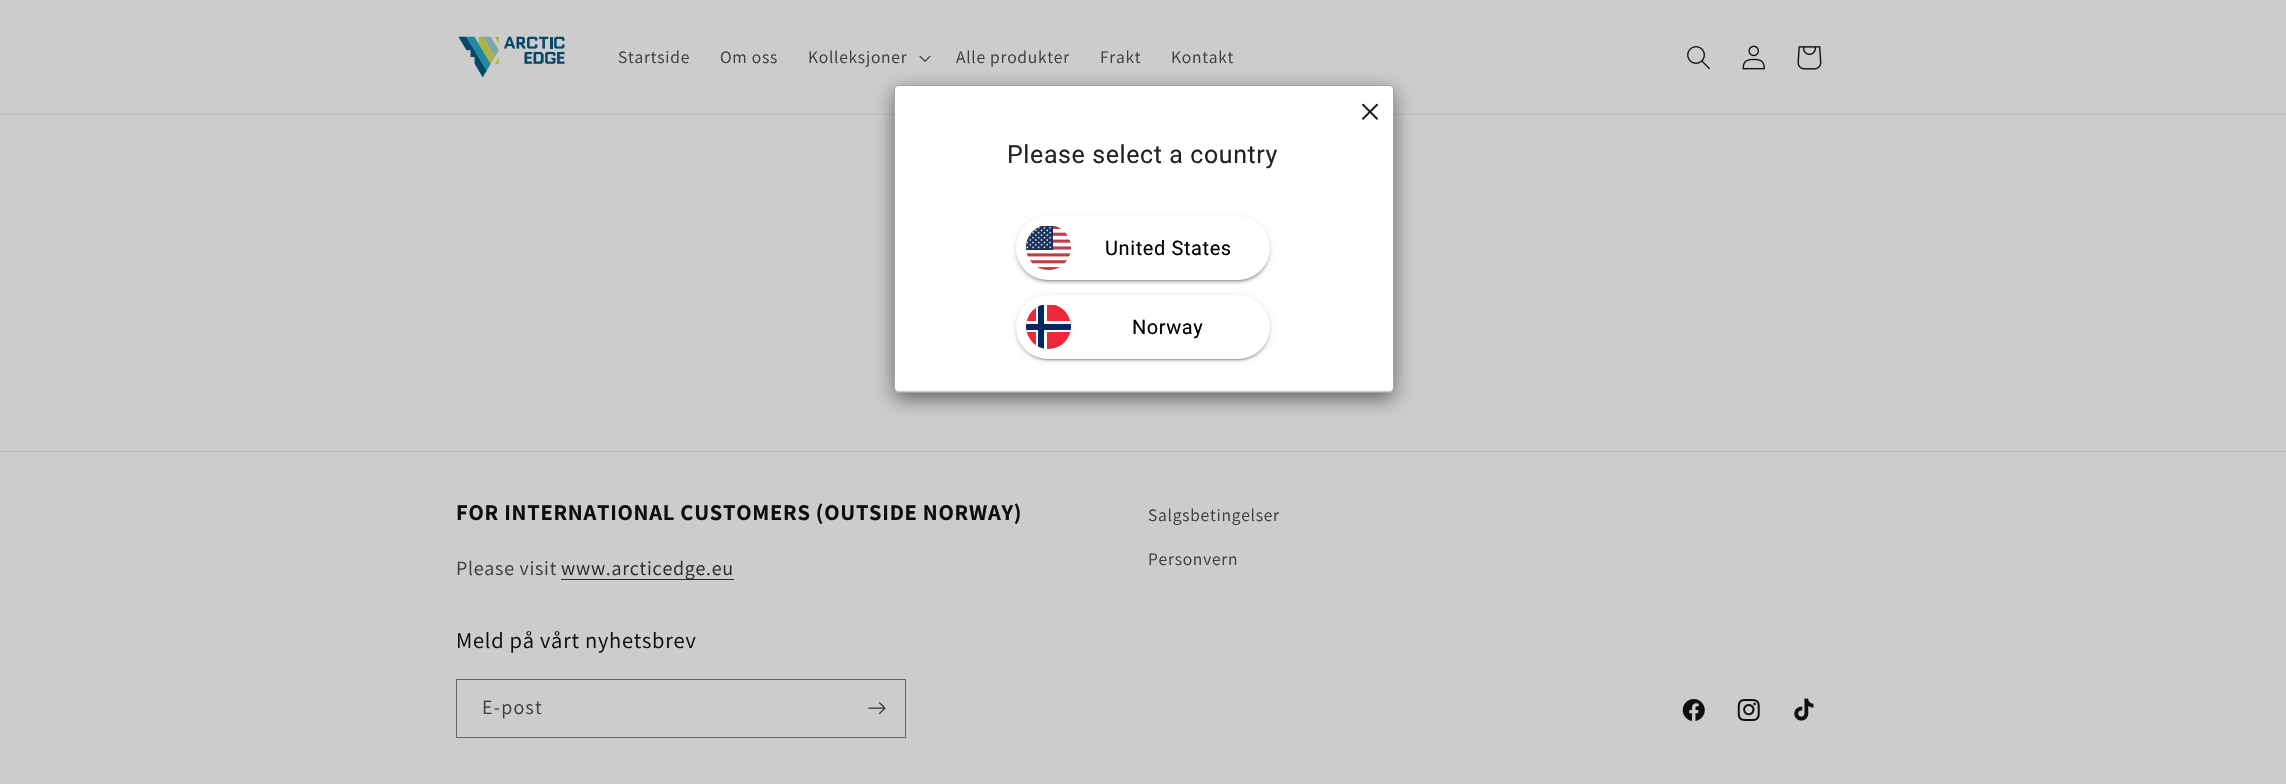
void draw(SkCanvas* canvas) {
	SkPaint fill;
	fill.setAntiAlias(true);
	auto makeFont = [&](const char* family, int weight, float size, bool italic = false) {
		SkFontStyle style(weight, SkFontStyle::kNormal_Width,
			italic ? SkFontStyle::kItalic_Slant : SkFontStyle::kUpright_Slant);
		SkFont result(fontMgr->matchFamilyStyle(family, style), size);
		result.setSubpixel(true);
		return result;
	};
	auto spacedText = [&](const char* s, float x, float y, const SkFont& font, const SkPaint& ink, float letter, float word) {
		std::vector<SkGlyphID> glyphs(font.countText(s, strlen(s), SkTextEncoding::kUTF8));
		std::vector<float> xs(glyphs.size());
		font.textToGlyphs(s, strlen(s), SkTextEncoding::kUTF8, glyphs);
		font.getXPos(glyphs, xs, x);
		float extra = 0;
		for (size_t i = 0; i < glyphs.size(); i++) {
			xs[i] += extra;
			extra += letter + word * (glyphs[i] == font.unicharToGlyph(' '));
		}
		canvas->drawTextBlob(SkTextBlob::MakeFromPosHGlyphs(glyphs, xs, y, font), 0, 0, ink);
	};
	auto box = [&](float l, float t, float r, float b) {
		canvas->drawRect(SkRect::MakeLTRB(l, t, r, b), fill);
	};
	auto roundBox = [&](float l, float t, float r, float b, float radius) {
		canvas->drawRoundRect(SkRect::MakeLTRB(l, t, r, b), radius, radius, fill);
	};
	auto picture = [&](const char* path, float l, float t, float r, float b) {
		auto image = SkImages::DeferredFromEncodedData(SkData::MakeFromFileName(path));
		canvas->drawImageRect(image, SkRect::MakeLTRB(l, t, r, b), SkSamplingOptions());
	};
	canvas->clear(0xFFCCCCCC);
	fill.setColor(0xFFBDBDBD);
	box(0, 114, 2286, 115);
	picture("image0.png", 458, 36, 565, 78);
	picture("image1.png", 919, 55, 931, 62);
	picture("image2.png", 1687, 46, 1710, 70);
	picture("image3.png", 1742, 45, 1765, 70);
	picture("image4.png", 1797, 46, 1822, 70);
	canvas->save();
	canvas->clipPath(SkPathBuilder(SkPathFillType::kEvenOdd).moveTo(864, 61).lineTo(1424, 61).lineTo(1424, 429).lineTo(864, 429).close().moveTo(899, 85).lineTo(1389, 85).cubicTo(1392, 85, 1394, 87, 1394, 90).lineTo(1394, 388).cubicTo(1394, 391, 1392, 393, 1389, 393).lineTo(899, 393).cubicTo(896, 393, 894, 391, 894, 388).lineTo(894, 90).cubicTo(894, 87, 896, 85, 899, 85).close().detach(), true);
	fill.setColor(0x80000000);
	fill.setMaskFilter(SkMaskFilter::MakeBlur(kNormal_SkBlurStyle, 9.5f));
	canvas->drawRoundRect(SkRect::MakeLTRB(894, 91, 1394, 399), 5, 5, fill);
	fill.setMaskFilter(nullptr);
	canvas->restore();
	fill.setColor(0xFFFFFFFF);
	roundBox(895, 86, 1393, 391, 4);
	fill.setStyle(SkPaint::kStroke_Style);
	fill.setStrokeWidth(1);
	fill.setColor(0x33000000);
	canvas->drawRoundRect(SkRect::MakeLTRB(894.5f, 85.5f, 1393.5f, 392.5f), 4.5f, 4.5f, fill);
	fill.setStyle(SkPaint::kFill_Style);
	fill.setColor(0xFFFFFFFF);
	canvas->drawPath(SkPathBuilder().moveTo(899, 86).lineTo(1389, 86).cubicTo(1391, 86, 1393, 88, 1393, 90).lineTo(1393, 119).lineTo(895, 119).lineTo(895, 90).cubicTo(895, 88, 897, 86, 899, 86).close().detach(), fill);
	picture("image5.png", 1362, 103, 1378, 120);
	canvas->save();
	canvas->clipPath(SkPathBuilder(SkPathFillType::kEvenOdd).moveTo(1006, 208).lineTo(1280, 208).lineTo(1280, 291).lineTo(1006, 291).close().moveTo(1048, 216).lineTo(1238, 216).cubicTo(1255.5f, 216, 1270, 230.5f, 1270, 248).cubicTo(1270, 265.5f, 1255.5f, 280, 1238, 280).lineTo(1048, 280).cubicTo(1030.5f, 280, 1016, 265.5f, 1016, 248).cubicTo(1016, 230.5f, 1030.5f, 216, 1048, 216).close().detach(), true);
	fill.setColor(0x1F000000);
	fill.setMaskFilter(SkMaskFilter::MakeBlur(kNormal_SkBlurStyle, 3));
	canvas->drawRoundRect(SkRect::MakeLTRB(1016, 218, 1270, 281), 31.5f, 31.5f, fill);
	fill.setMaskFilter(nullptr);
	canvas->restore();
	canvas->save();
	canvas->clipPath(SkPathBuilder(SkPathFillType::kEvenOdd).moveTo(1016, 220).lineTo(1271, 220).lineTo(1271, 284).lineTo(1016, 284).close().moveTo(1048, 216).lineTo(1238, 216).cubicTo(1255.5f, 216, 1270, 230.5f, 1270, 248).cubicTo(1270, 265.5f, 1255.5f, 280, 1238, 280).lineTo(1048, 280).cubicTo(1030.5f, 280, 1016, 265.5f, 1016, 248).cubicTo(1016, 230.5f, 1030.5f, 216, 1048, 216).close().detach(), true);
	fill.setColor(0x33000000);
	fill.setMaskFilter(SkMaskFilter::MakeBlur(kNormal_SkBlurStyle, 0.5f));
	canvas->drawRoundRect(SkRect::MakeLTRB(1019, 223, 1268, 281), 29, 29, fill);
	fill.setMaskFilter(nullptr);
	canvas->restore();
	canvas->save();
	canvas->clipPath(SkPathBuilder(SkPathFillType::kEvenOdd).moveTo(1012, 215).lineTo(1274, 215).lineTo(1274, 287).lineTo(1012, 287).close().moveTo(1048, 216).lineTo(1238, 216).cubicTo(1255.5f, 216, 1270, 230.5f, 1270, 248).cubicTo(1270, 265.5f, 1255.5f, 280, 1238, 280).lineTo(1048, 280).cubicTo(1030.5f, 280, 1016, 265.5f, 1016, 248).cubicTo(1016, 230.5f, 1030.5f, 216, 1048, 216).close().detach(), true);
	fill.setColor(0x24000000);
	fill.setMaskFilter(SkMaskFilter::MakeBlur(kNormal_SkBlurStyle, 1));
	canvas->drawRoundRect(SkRect::MakeLTRB(1016, 219, 1270, 283), 32, 32, fill);
	fill.setMaskFilter(nullptr);
	canvas->restore();
	picture("image6.png", 1026, 226, 1071, 270);
	canvas->save();
	canvas->clipPath(SkPathBuilder(SkPathFillType::kEvenOdd).moveTo(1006, 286).lineTo(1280, 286).lineTo(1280, 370).lineTo(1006, 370).close().moveTo(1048, 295).lineTo(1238, 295).cubicTo(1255.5f, 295, 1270, 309.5f, 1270, 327).cubicTo(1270, 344.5f, 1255.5f, 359, 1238, 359).lineTo(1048, 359).cubicTo(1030.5f, 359, 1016, 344.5f, 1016, 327).cubicTo(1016, 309.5f, 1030.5f, 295, 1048, 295).close().detach(), true);
	fill.setColor(0x1F000000);
	fill.setMaskFilter(SkMaskFilter::MakeBlur(kNormal_SkBlurStyle, 3));
	canvas->drawRoundRect(SkRect::MakeLTRB(1016, 296, 1270, 360), 32, 32, fill);
	fill.setMaskFilter(nullptr);
	canvas->restore();
	canvas->save();
	canvas->clipPath(SkPathBuilder(SkPathFillType::kEvenOdd).moveTo(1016, 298).lineTo(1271, 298).lineTo(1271, 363).lineTo(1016, 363).close().moveTo(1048, 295).lineTo(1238, 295).cubicTo(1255.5f, 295, 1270, 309.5f, 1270, 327).cubicTo(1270, 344.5f, 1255.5f, 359, 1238, 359).lineTo(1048, 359).cubicTo(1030.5f, 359, 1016, 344.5f, 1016, 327).cubicTo(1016, 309.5f, 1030.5f, 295, 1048, 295).close().detach(), true);
	fill.setColor(0x33000000);
	fill.setMaskFilter(SkMaskFilter::MakeBlur(kNormal_SkBlurStyle, 0.5f));
	canvas->drawRoundRect(SkRect::MakeLTRB(1019, 301, 1268, 360), 29.5f, 29.5f, fill);
	fill.setMaskFilter(nullptr);
	canvas->restore();
	canvas->save();
	canvas->clipPath(SkPathBuilder(SkPathFillType::kEvenOdd).moveTo(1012, 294).lineTo(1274, 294).lineTo(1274, 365).lineTo(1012, 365).close().moveTo(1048, 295).lineTo(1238, 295).cubicTo(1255.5f, 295, 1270, 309.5f, 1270, 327).cubicTo(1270, 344.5f, 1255.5f, 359, 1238, 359).lineTo(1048, 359).cubicTo(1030.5f, 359, 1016, 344.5f, 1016, 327).cubicTo(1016, 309.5f, 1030.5f, 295, 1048, 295).close().detach(), true);
	fill.setColor(0x24000000);
	fill.setMaskFilter(SkMaskFilter::MakeBlur(kNormal_SkBlurStyle, 1));
	canvas->drawRoundRect(SkRect::MakeLTRB(1016, 298, 1270, 361), 31.5f, 31.5f, fill);
	fill.setMaskFilter(nullptr);
	canvas->restore();
	canvas->save();
	canvas->clipRect(SkRect::MakeLTRB(1019, 305, 1079, 350));
	fill.setColor(0xFFED2939);
	canvas->drawCircle(1048.5f, 326.5f, 22.5f, fill);
	canvas->restore();
	canvas->save();
	canvas->clipPath(SkPathBuilder().moveTo(1048.5f, 304).cubicTo(1061, 304, 1071, 314, 1071, 326.5f).cubicTo(1071, 339, 1061, 349, 1048.5f, 349).cubicTo(1036, 349, 1026, 339, 1026, 326.5f).cubicTo(1026, 314, 1036, 304, 1048.5f, 304).close().detach(), true);
	fill.setColor(0xFFFFFFFF);
	box(1036, 305, 1047, 349);
	box(1026, 321, 1071, 332);
	fill.setColor(0xFF002664);
	box(1038, 305, 1044, 349);
	box(1026, 324, 1071, 330);
	canvas->restore();
	fill.setColor(0xFFBDBDBD);
	box(0, 451, 2286, 452);
	fill.setColor(0xFF2B2B2B);
	box(561, 579, 734, 580);
	fill.setStyle(SkPaint::kStroke_Style);
	fill.setColor(0xFF646464);
	canvas->drawRect(SkRect::MakeLTRB(456.5f, 679.5f, 905.5f, 737.5f), fill);
	picture("image7.png", 868, 702, 886, 715);
	picture("image8.png", 1682, 699, 1705, 721);
	picture("image9.png", 1737, 699, 1760, 721);
	picture("image10.png", 1794, 698, 1814, 721);
	auto font1 = makeFont("Assistant", 400, 17.5f);
	fill.setStyle(SkPaint::kFill_Style);
	fill.setColor(0xFF3E3E3E);
	spacedText("Startside", 618, 63, font1, fill, 0.75f, 0);
	spacedText("Om oss", 720, 63, font1, fill, 0.75f, 0);
	spacedText("Kolleksjoner", 808, 63, font1, fill, 0.75f, 0);
	spacedText("Alle produkter", 956, 63, font1, fill, 0.75f, 0);
	spacedText("Frakt", 1100, 63, font1, fill, 0.75f, 0);
	spacedText("Kontakt", 1171, 63, font1, fill, 0.75f, 0);
	auto font2 = makeFont("Roboto", 400, 25);
	fill.setColor(0xFF232223);
	spacedText("Please select a country", 1007, 163, font2, fill, 0.6f, 0);
	auto font3 = makeFont("Roboto", 400, 20);
	fill.setColor(0xFF000000);
	spacedText("United States", 1105, 255, font3, fill, 0.6f, 0);
	spacedText("Norway", 1132, 334, font3, fill, 0.6f, 0);
	auto font4 = makeFont("Assistant", 700, 22.5f);
	fill.setColor(0xFF0E0E0E);
	spacedText("FOR INTERNATIONAL CUSTOMERS (OUTSIDE NORWAY)", 456, 520, font4, fill, 0.75f, 0);
	auto font5 = makeFont("Assistant", 400, 20);
	fill.setColor(0xFF3E3E3E);
	spacedText("Please visit", 456, 575, font5, fill, 0.75f, 0);
	fill.setColor(0xFF2A2A2A);
	spacedText("www.arcticedge.eu", 561, 575, font5, fill, 0.75f, 0);
	fill.setColor(0xFF3E3E3E);
	spacedText("Salgsbetingelser", 1148, 521, font1, fill, 0.75f, 0);
	spacedText("Personvern", 1148, 565, font1, fill, 0.75f, 0);
	auto font6 = makeFont("Assistant", 400, 22.5f);
	fill.setColor(0xFF0E0E0E);
	spacedText("Meld på vårt nyhetsbrev", 456, 648, font6, fill, 0.75f, 0);
	fill.setColor(0xFF3E3E3E);
	spacedText("E-post", 482, 714, font5, fill, 1.25f, 0);
}
